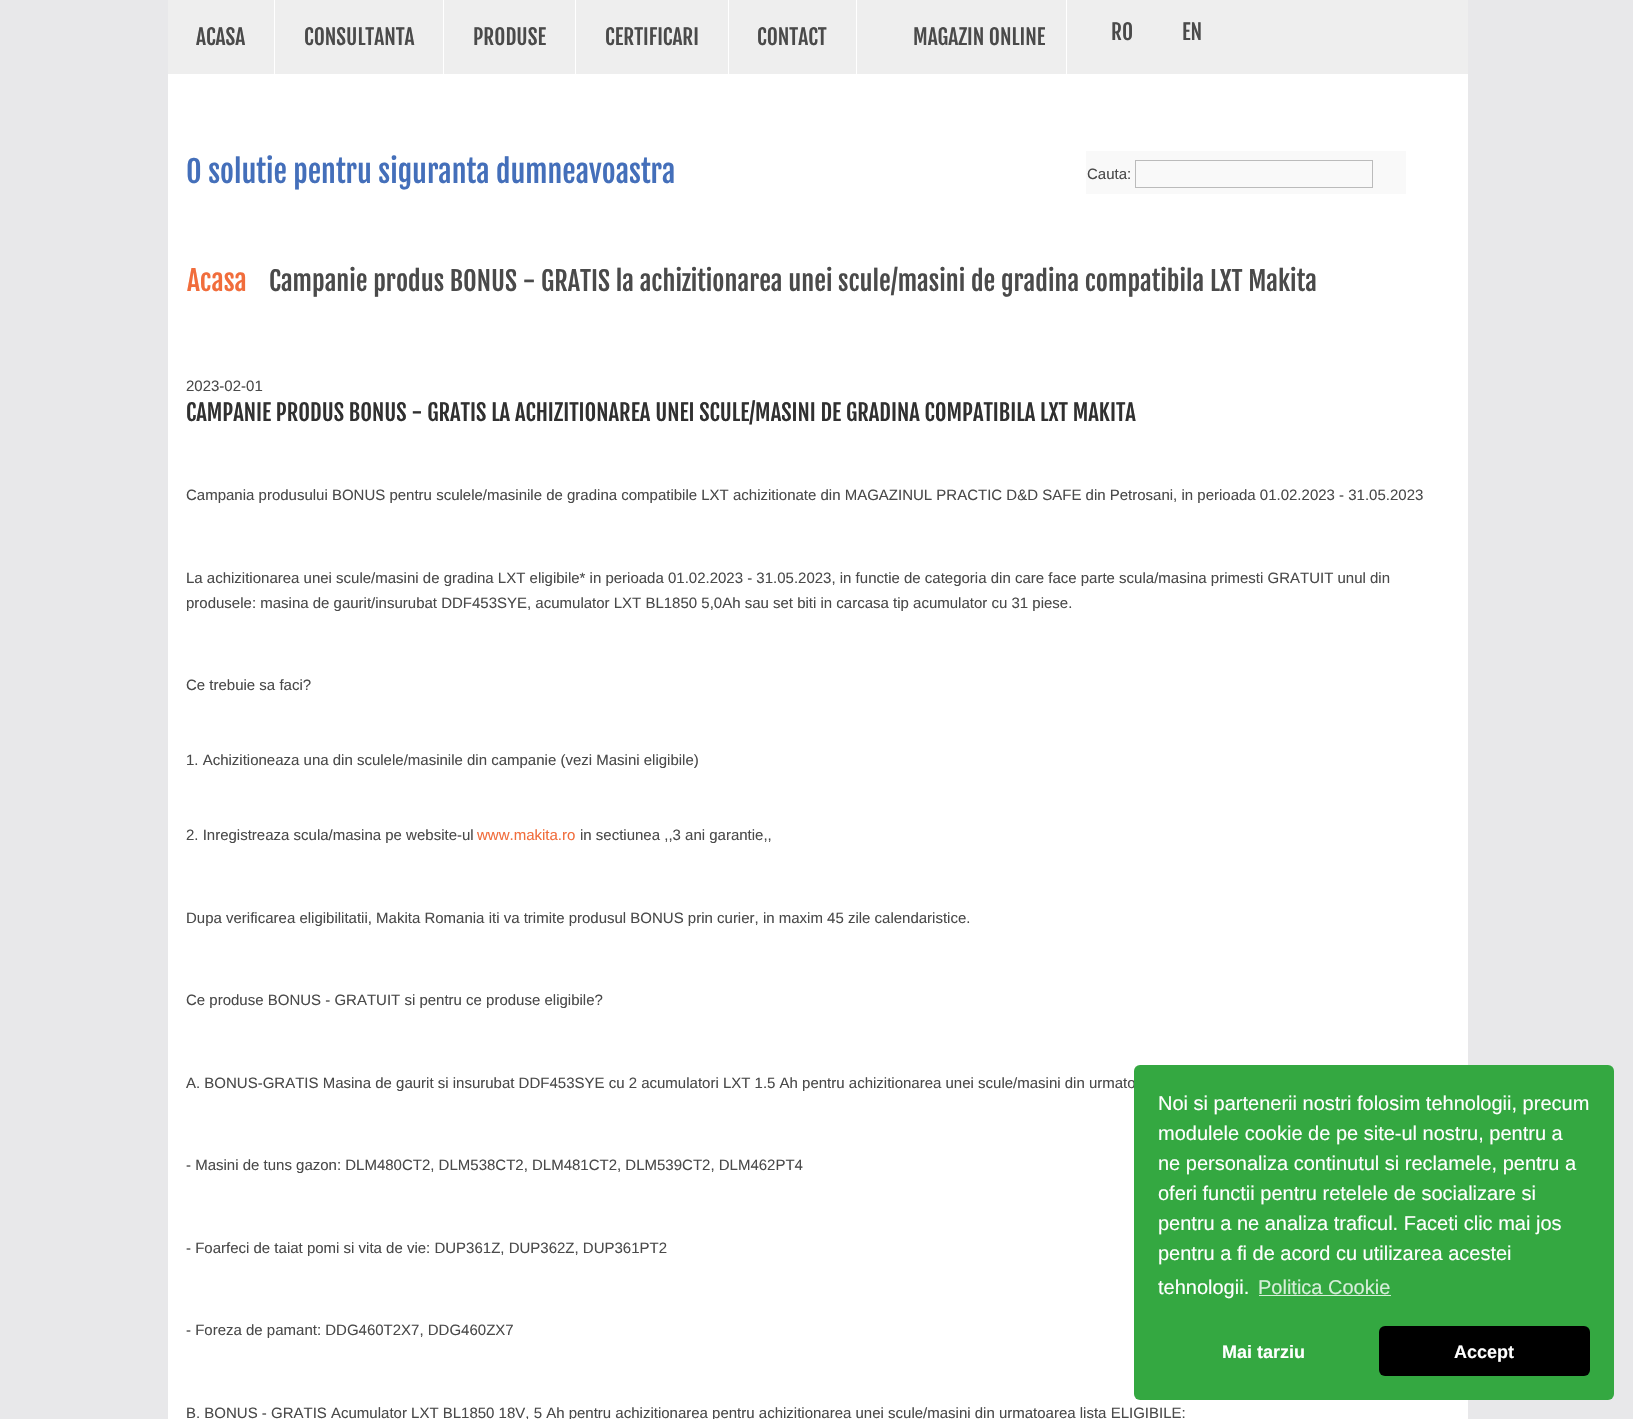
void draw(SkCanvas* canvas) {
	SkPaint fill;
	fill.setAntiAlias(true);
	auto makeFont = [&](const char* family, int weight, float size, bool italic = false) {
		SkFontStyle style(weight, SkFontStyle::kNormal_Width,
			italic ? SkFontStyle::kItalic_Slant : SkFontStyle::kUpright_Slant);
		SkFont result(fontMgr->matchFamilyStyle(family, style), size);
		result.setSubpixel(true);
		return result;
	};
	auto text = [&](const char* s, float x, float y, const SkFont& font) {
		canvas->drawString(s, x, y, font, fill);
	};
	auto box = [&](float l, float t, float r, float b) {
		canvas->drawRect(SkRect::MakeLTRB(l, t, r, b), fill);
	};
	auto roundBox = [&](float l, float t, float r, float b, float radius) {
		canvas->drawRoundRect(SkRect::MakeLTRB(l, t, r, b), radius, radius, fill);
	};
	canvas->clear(0xFFE8E8EA);
	fill.setColor(0xFFFFFFFF);
	box(168, 74, 1468, 1419);
	fill.setColor(0xFFEEEEEE);
	box(168, 0, 1468, 74);
	fill.setColor(0xFFFFFFFF);
	box(274, 0, 275, 74);
	box(443, 0, 444, 74);
	box(575, 0, 576, 74);
	box(728, 0, 729, 74);
	box(856, 0, 857, 74);
	box(1066, 0, 1067, 74);
	fill.setColor(0xFFF9F9F9);
	box(1086, 151, 1406, 194);
	fill.setStyle(SkPaint::kStroke_Style);
	fill.setStrokeWidth(1);
	fill.setColor(0xFFBBBBBB);
	canvas->drawRect(SkRect::MakeLTRB(1135.5f, 160.5f, 1372.5f, 187.5f), fill);
	auto font1 = makeFont("Fjalla One", 400, 21.25f);
	fill.setStyle(SkPaint::kFill_Style);
	fill.setColor(0xFF4A4A4A);
	text("ACASA", 196, 45, font1);
	text("CONSULTANTA", 304, 45, font1);
	text("PRODUSE", 473, 45, font1);
	text("CERTIFICARI", 605, 45, font1);
	text("CONTACT", 757, 45, font1);
	text("MAGAZIN ONLINE", 913, 45, font1);
	text("RO", 1111, 40, font1);
	text("EN", 1182, 40, font1);
	auto font2 = makeFont("Fjalla One", 400, 30);
	fill.setColor(0xFF446FBA);
	text("O solutie pentru siguranta dumneavoastra", 186, 183, font2);
	auto font3 = makeFont("Liberation Sans", 400, 15);
	fill.setColor(0xFF4A4A4A);
	text("Cauta:", 1087, 179, font3);
	auto font4 = makeFont("Fjalla One", 400, 27.5f);
	fill.setColor(0xFFF16D3C);
	text("Acasa", 187, 291, font4);
	auto font5 = makeFont("Fjalla One", 400, 26.25f);
	fill.setColor(0xFF4A4A4A);
	text("Campanie produs BONUS - GRATIS la achizitionarea unei scule/masini de gradina compatibila LXT Makita", 269, 291, font5);
	text("2023-02-01", 186, 391, font3);
	auto font6 = makeFont("Fjalla One", 400, 22.5f);
	fill.setColor(0xFF303030);
	text("CAMPANIE PRODUS BONUS - GRATIS LA ACHIZITIONAREA UNEI SCULE/MASINI DE GRADINA COMPATIBILA LXT MAKITA", 186, 421, font6);
	fill.setColor(0xFF4A4A4A);
	text("Campania produsului BONUS pentru sculele/masinile de gradina compatibile LXT achizitionate din MAGAZINUL PRACTIC D&D SAFE din Petrosani, in perioada 01.02.2023 - 31.05.2023", 186, 500, font3);
	text("La achizitionarea unei scule/masini de gradina LXT eligibile* in perioada 01.02.2023 - 31.05.2023, in functie de categoria din care face parte scula/masina primesti GRATUIT unul din", 186, 583, font3);
	text("produsele: masina de gaurit/insurubat DDF453SYE, acumulator LXT BL1850 5,0Ah sau set biti in carcasa tip acumulator cu 31 piese.", 186, 608, font3);
	text("Ce trebuie sa faci?", 186, 690, font3);
	text("1. Achizitioneaza una din sculele/masinile din campanie (vezi Masini eligibile)", 186, 765, font3);
	text("2. Inregistreaza scula/masina pe website-ul", 186, 840, font3);
	fill.setColor(0xFFF16D3C);
	text("www.makita.ro", 477, 840, font3);
	fill.setColor(0xFF4A4A4A);
	text("in sectiunea ,,3 ani garantie,,", 580, 840, font3);
	text("Dupa verificarea eligibilitatii, Makita Romania iti va trimite produsul BONUS prin curier, in maxim 45 zile calendaristice.", 186, 923, font3);
	text("Ce produse BONUS - GRATUIT si pentru ce produse eligibile?", 186, 1005, font3);
	text("A. BONUS-GRATIS Masina de gaurit si insurubat DDF453SYE cu 2 acumulatori LXT 1.5 Ah pentru achizitionarea unei scule/masini din urmato", 186, 1088, font3);
	text("- Masini de tuns gazon: DLM480CT2, DLM538CT2, DLM481CT2, DLM539CT2, DLM462PT4", 186, 1170, font3);
	text("- Foarfeci de taiat pomi si vita de vie: DUP361Z, DUP362Z, DUP361PT2", 186, 1253, font3);
	text("- Foreza de pamant: DDG460T2X7, DDG460ZX7", 186, 1335, font3);
	text("B. BONUS - GRATIS Acumulator LXT BL1850 18V, 5 Ah pentru achizitionarea pentru achizitionarea unei scule/masini din urmatoarea lista ELIGIBILE:", 186, 1418, font3);
	fill.setColor(0xFF34A841);
	roundBox(1134, 1065, 1614, 1400, 6);
	auto font7 = makeFont("Liberation Sans", 400, 20);
	fill.setColor(0xFFFFFFFF);
	text("Noi si partenerii nostri folosim tehnologii, precum", 1158, 1110, font7);
	text("modulele cookie de pe site-ul nostru, pentru a", 1158, 1140, font7);
	text("ne personaliza continutul si reclamele, pentru a", 1158, 1170, font7);
	text("oferi functii pentru retelele de socializare si", 1158, 1200, font7);
	text("pentru a ne analiza traficul. Faceti clic mai jos", 1158, 1230, font7);
	text("pentru a fi de acord cu utilizarea acestei", 1158, 1260, font7);
	text("tehnologii.", 1158, 1294, font7);
	fill.setColor(0xFFD6EED9);
	text("Politica Cookie", 1258, 1294, font7);
	box(1259, 1295, 1391, 1296);
	auto font8 = makeFont("Liberation Sans", 700, 18);
	fill.setColor(0xFFFFFFFF);
	text("Mai tarziu", 1222, 1358, font8);
	fill.setColor(0xFF000000);
	roundBox(1379, 1326, 1590, 1376, 6);
	fill.setColor(0xFFFFFFFF);
	text("Accept", 1454, 1358, font8);
}
